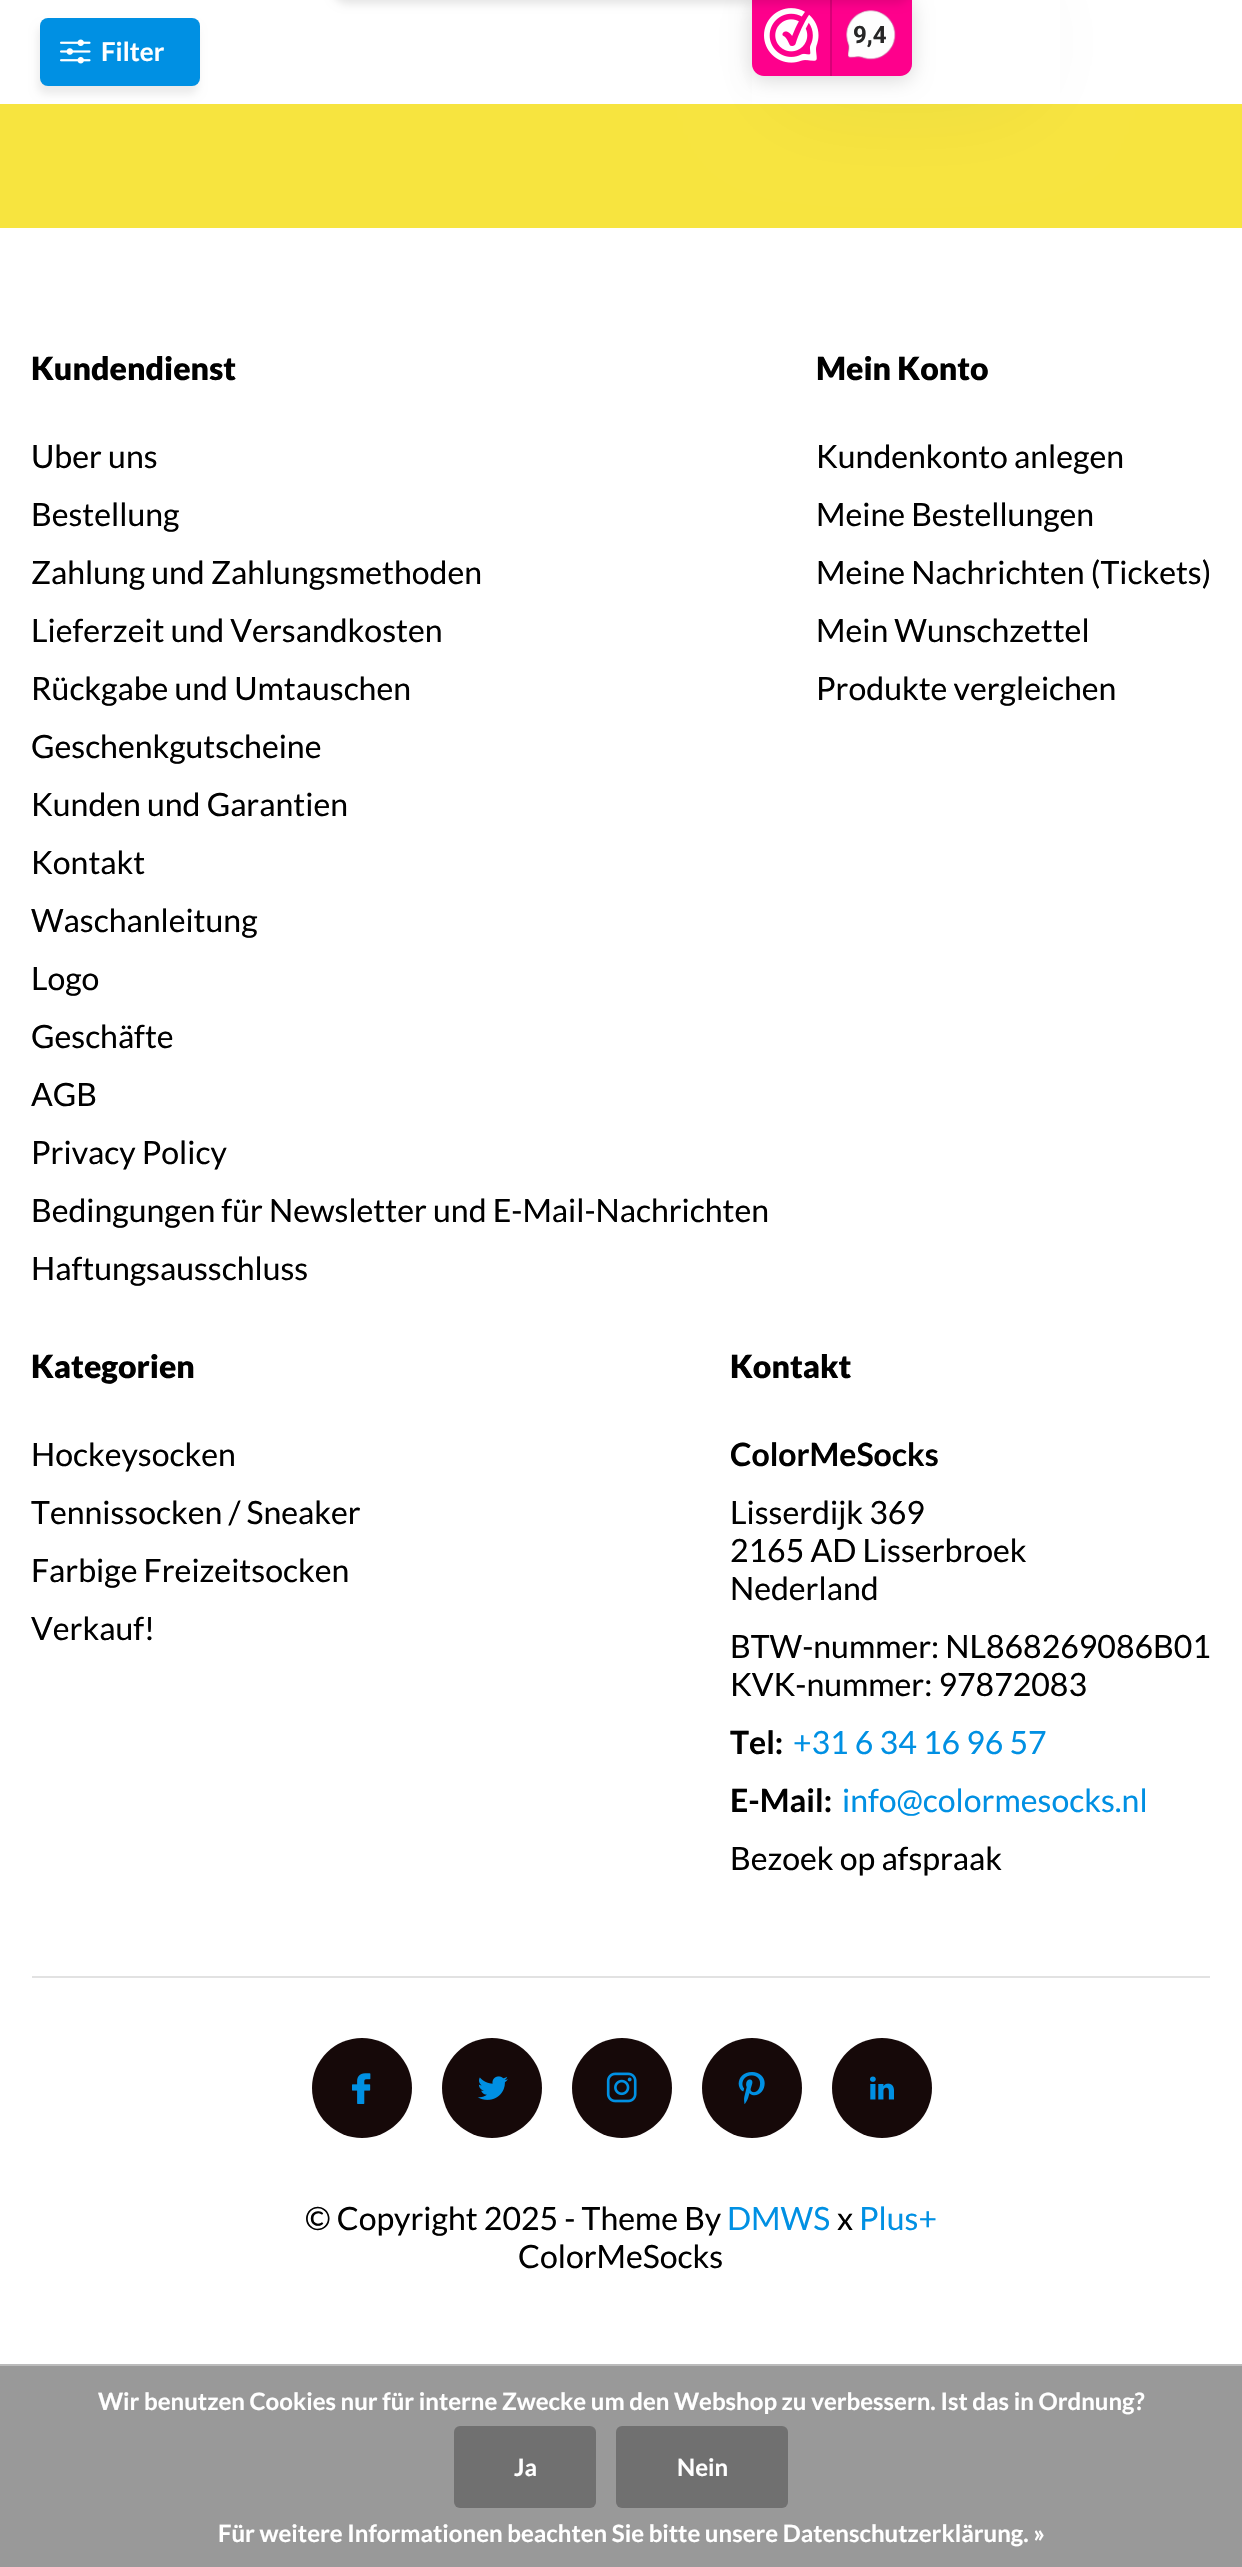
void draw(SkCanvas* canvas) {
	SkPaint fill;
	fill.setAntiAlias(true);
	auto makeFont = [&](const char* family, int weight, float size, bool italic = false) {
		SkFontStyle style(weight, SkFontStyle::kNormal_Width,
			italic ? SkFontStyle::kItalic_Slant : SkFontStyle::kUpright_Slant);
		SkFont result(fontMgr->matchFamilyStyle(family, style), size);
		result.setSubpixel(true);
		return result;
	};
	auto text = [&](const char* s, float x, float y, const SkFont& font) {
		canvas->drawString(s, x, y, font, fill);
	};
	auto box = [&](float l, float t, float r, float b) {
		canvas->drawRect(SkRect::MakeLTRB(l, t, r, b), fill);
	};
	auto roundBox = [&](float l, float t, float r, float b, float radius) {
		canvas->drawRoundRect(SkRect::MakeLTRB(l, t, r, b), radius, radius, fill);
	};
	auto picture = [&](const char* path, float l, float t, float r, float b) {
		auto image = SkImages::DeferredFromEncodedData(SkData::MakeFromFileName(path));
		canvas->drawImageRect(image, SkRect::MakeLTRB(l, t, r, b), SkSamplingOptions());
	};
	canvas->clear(0xFFFFFFFF);
	fill.setColor(0xFFF7E43F);
	box(0, 104, 1242, 228);
	fill.setColor(0x1428384A);
	fill.setMaskFilter(SkMaskFilter::MakeBlur(kNormal_SkBlurStyle, 50));
	canvas->drawRoundRect(SkRect::MakeLTRB(788, -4, 1024, 88), 8, 8, fill);
	fill.setMaskFilter(nullptr);
	fill.setColor(0xFFFFFFFF);
	box(752, 0, 1060, 104);
	fill.setColor(0x26000000);
	fill.setMaskFilter(SkMaskFilter::MakeBlur(kNormal_SkBlurStyle, 10));
	canvas->drawRoundRect(SkRect::MakeLTRB(752, 0, 912, 80), 12, 12, fill);
	fill.setMaskFilter(nullptr);
	fill.setColor(0xFFFE008C);
	canvas->drawPath(SkPathBuilder().moveTo(752, -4).lineTo(912, -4).lineTo(912, 64).cubicTo(912, 70.5f, 906.5f, 76, 900, 76).lineTo(764, 76).cubicTo(757.5f, 76, 752, 70.5f, 752, 64).close().detach(), fill);
	picture("image0.png", 764, 8, 819, 63);
	fill.setColor(0xFFD80077);
	box(830, 0, 832, 76);
	picture("image1.png", 846, 10, 896, 60);
	fill.setColor(0x1A000000);
	fill.setMaskFilter(SkMaskFilter::MakeBlur(kNormal_SkBlurStyle, 4));
	canvas->drawRoundRect(SkRect::MakeLTRB(332, -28, 912, 4), 16, 16, fill);
	fill.setMaskFilter(nullptr);
	fill.setColor(0x14000000);
	fill.setMaskFilter(SkMaskFilter::MakeBlur(kNormal_SkBlurStyle, 4));
	canvas->drawRoundRect(SkRect::MakeLTRB(38, 26, 198, 94), 8, 8, fill);
	fill.setMaskFilter(nullptr);
	fill.setColor(0xFF0090E3);
	roundBox(40, 18, 200, 86, 8);
	picture("image2.png", 60, 39, 91, 64);
	fill.setColor(0xFFE2E2E2);
	box(32, 1976, 1210, 1978);
	fill.setColor(0xFF160909);
	canvas->drawCircle(362, 2088, 50, fill);
	picture("image3.png", 352, 2073, 371, 2104);
	canvas->drawCircle(492, 2088, 50, fill);
	picture("image4.png", 477, 2076, 508, 2100);
	canvas->drawCircle(622, 2088, 50, fill);
	picture("image5.png", 606, 2072, 637, 2103);
	canvas->drawCircle(752, 2088, 50, fill);
	picture("image6.png", 738, 2072, 765, 2104);
	canvas->drawCircle(882, 2088, 50, fill);
	picture("image7.png", 870, 2076, 894, 2100);
	fill.setColor(0xFF999999);
	box(0, 2366, 1242, 2567);
	fill.setColor(0xFFBBBBBB);
	box(0, 2364, 1242, 2366);
	fill.setColor(0xFF707070);
	roundBox(454, 2426, 596, 2508, 6);
	roundBox(616, 2426, 788, 2508, 6);
	auto font1 = makeFont("Roboto", 700, 24);
	fill.setColor(0xFF272626);
	text("9,4", 853, 43, font1);
	auto font2 = makeFont("Lato", 700, 26);
	fill.setColor(0xFFFFFFFF);
	text("Filter", 101, 61, font2);
	auto font3 = makeFont("Lato", 900, 32);
	fill.setColor(0xFF000000);
	text("Kundendienst", 31, 380, font3);
	auto font4 = makeFont("Lato", 400, 32);
	text("Uber uns", 31, 468, font4);
	text("Bestellung", 31, 526, font4);
	text("Zahlung und Zahlungsmethoden", 31, 584, font4);
	text("Lieferzeit und Versandkosten", 31, 642, font4);
	text("Rückgabe und Umtauschen", 31, 700, font4);
	text("Geschenkgutscheine", 31, 758, font4);
	text("Kunden und Garantien", 31, 816, font4);
	text("Kontakt", 31, 874, font4);
	text("Waschanleitung", 31, 932, font4);
	text("Logo", 31, 990, font4);
	text("Geschäfte", 31, 1048, font4);
	text("AGB", 31, 1106, font4);
	text("Privacy Policy", 31, 1164, font4);
	text("Bedingungen für Newsletter und E-Mail-Nachrichten", 31, 1222, font4);
	text("Haftungsausschluss", 31, 1280, font4);
	text("Mein Konto", 816, 380, font3);
	text("Kundenkonto anlegen", 816, 468, font4);
	text("Meine Bestellungen", 816, 526, font4);
	text("Meine Nachrichten (Tickets)", 816, 584, font4);
	text("Mein Wunschzettel", 816, 642, font4);
	text("Produkte vergleichen", 816, 700, font4);
	text("Kategorien", 31, 1378, font3);
	text("Hockeysocken", 31, 1466, font4);
	text("Tennissocken / Sneaker", 31, 1524, font4);
	text("Farbige Freizeitsocken", 31, 1582, font4);
	text("Verkauf!", 31, 1640, font4);
	text("Kontakt", 730, 1378, font3);
	auto font5 = makeFont("Lato", 700, 32);
	text("ColorMeSocks", 730, 1466, font5);
	text("Lisserdijk 369", 730, 1524, font4);
	text("2165 AD Lisserbroek", 730, 1562, font4);
	text("Nederland", 730, 1600, font4);
	text("BTW-nummer: NL868269086B01", 730, 1658, font4);
	text("KVK-nummer: 97872083", 730, 1696, font4);
	text("Tel:", 730, 1754, font5);
	fill.setColor(0xFF0090E3);
	text("+31 6 34 16 96 57", 793, 1754, font4);
	fill.setColor(0xFF000000);
	text("E-Mail:", 730, 1812, font5);
	fill.setColor(0xFF0090E3);
	text("info@colormesocks.nl", 842, 1812, font4);
	fill.setColor(0xFF000000);
	text("Bezoek op afspraak", 730, 1870, font4);
	text("© Copyright 2025 - Theme By", 305, 2230, font4);
	fill.setColor(0xFF0090E3);
	text("DMWS", 727, 2230, font4);
	fill.setColor(0xFF000000);
	text("x", 837, 2230, font4);
	fill.setColor(0xFF0090E3);
	text("Plus+", 859, 2230, font4);
	fill.setColor(0xFF000000);
	text("ColorMeSocks", 518, 2268, font4);
	auto font6 = makeFont("Lato", 700, 24);
	fill.setColor(0xFFFFFFFF);
	text("Wir benutzen Cookies nur für interne Zwecke um den Webshop zu verbessern. Ist das in Ordnung?", 98, 2410, font6);
	text("Ja", 514, 2476, font6);
	text("Nein", 677, 2476, font6);
	text("Für weitere Informationen beachten Sie bitte unsere Datenschutzerklärung. »", 218, 2542, font6);
}
